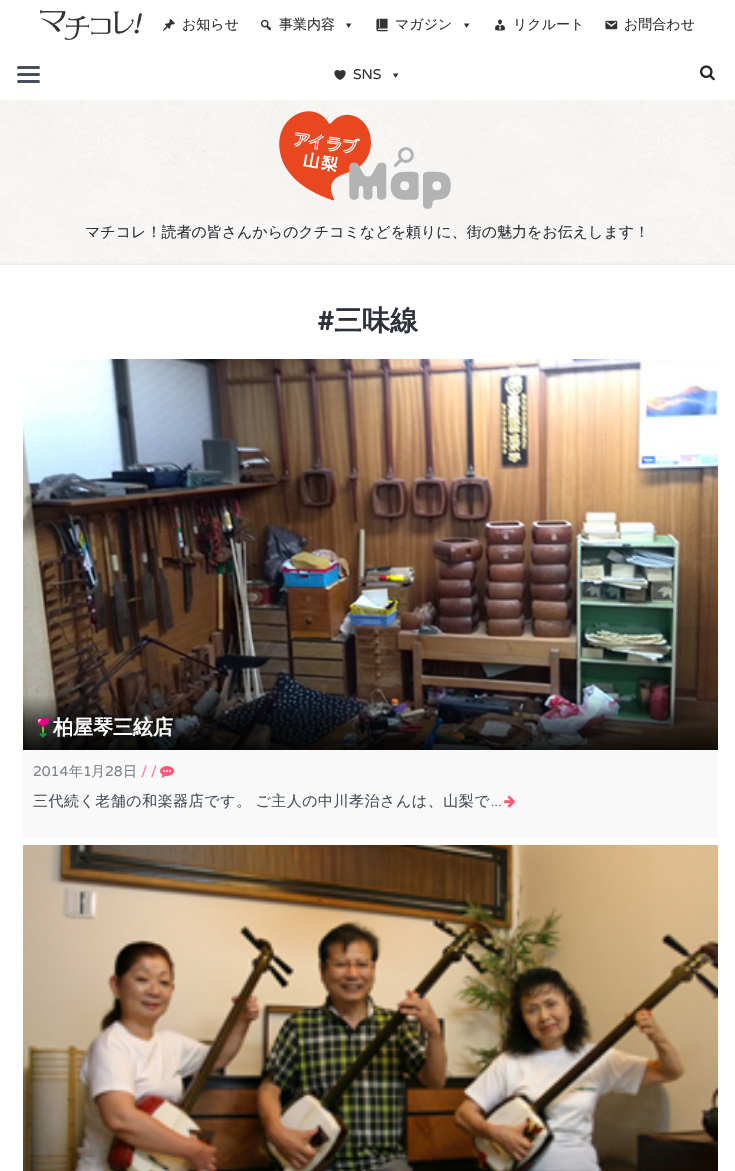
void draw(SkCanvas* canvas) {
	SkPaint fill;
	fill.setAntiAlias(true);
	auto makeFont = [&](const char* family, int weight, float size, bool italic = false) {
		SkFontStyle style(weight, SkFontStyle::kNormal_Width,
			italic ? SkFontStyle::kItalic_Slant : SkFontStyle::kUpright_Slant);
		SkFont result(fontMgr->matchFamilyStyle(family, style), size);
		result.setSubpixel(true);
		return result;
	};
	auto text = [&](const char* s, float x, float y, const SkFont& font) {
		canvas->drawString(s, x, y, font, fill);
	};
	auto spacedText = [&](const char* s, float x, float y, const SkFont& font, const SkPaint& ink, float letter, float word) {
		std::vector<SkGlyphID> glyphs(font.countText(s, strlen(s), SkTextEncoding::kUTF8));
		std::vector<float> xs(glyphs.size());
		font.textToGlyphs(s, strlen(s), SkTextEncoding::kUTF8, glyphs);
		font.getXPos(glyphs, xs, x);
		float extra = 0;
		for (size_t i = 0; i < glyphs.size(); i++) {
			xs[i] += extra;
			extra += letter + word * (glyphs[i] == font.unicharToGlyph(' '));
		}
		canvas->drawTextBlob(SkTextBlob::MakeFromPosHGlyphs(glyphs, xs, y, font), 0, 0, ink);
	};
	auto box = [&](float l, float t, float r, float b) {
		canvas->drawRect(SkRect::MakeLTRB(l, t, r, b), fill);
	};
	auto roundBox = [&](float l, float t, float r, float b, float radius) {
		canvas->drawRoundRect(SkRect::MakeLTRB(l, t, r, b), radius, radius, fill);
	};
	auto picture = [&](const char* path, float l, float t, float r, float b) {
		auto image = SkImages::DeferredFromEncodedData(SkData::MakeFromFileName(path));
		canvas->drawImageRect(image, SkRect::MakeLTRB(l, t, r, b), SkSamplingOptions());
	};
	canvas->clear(0xFFFFFFFF);
	picture("image0.png", 0, 100, 735, 265);
	picture("image1.png", 40, 10, 142, 40);
	picture("image2.png", 163, 18, 175, 31);
	picture("image3.png", 260, 19, 271, 31);
	fill.setColor(0xFF333333);
	canvas->drawPath(SkPathBuilder().moveTo(351.5f, 23.5f).lineTo(348.5f, 28).lineTo(346, 23.5f).close().detach(), fill);
	picture("image4.png", 376, 18, 388, 32);
	canvas->drawPath(SkPathBuilder().moveTo(469.5f, 23.5f).lineTo(466.5f, 28).lineTo(464, 23.5f).close().detach(), fill);
	picture("image5.png", 495, 19, 505, 31);
	picture("image6.png", 605, 20, 618, 30);
	picture("image7.png", 334, 70, 346, 80);
	canvas->drawPath(SkPathBuilder().moveTo(398.5f, 73.5f).lineTo(395.5f, 78).lineTo(393, 73.5f).close().detach(), fill);
	fill.setColor(0xFF474E5C);
	roundBox(17, 73, 40, 76, 1.5f);
	roundBox(17, 66, 40, 69, 1.5f);
	roundBox(17, 80, 40, 83, 1.5f);
	picture("image8.png", 700, 65, 715, 81);
	picture("image9.png", 279, 111, 451, 209);
	fill.setColor(0x4D646464);
	fill.setMaskFilter(SkMaskFilter::MakeBlur(kNormal_SkBlurStyle, 3));
	canvas->drawRect(SkRect::MakeLTRB(0, 267, 735, 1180), fill);
	fill.setMaskFilter(nullptr);
	fill.setColor(0xFFFFFFFF);
	box(0, 265, 735, 1171);
	fill.setColor(0xFFF9F9F9);
	box(23, 750, 718, 838);
	picture("image10.png", 23, 359, 718, 750);
	picture("image11.png", 37, 718, 49, 738);
	picture("image12.png", 160, 766, 174, 778);
	picture("image13.png", 504, 795, 516, 808);
	picture("image14.png", 23, 845, 718, 1171);
	auto font1 = makeFont("WenQuanYi Zen Hei", 500, 14);
	fill.setColor(0xFF333333);
	text("お知らせ", 182, 29, font1);
	text("事業内容", 279, 29, font1);
	text("マガジン", 395, 29, font1);
	text("リクルート", 513, 29, font1);
	text("お問合わせ", 624, 29, font1);
	auto font2 = makeFont("Varela Round", 400, 14);
	text("SNS", 353, 79, font2);
	auto font3 = makeFont("WenQuanYi Zen Hei", 500, 15);
	fill.setColor(0xFF2D3139);
	text("マチコレ！読者の皆さんからのクチコミなどを頼りに、街の魅力をお伝えします！", 85, 237, font3);
	auto font4 = makeFont("Varela Round", 700, 28);
	text("#", 317, 330, font4);
	auto font5 = makeFont("WenQuanYi Zen Hei", 700, 28);
	text("三味線", 334, 330, font5);
	auto font6 = makeFont("WenQuanYi Zen Hei", 700, 20);
	fill.setColor(0xFFFFFFFF);
	text("柏屋琴三絃店", 53, 734, font6);
	fill.setColor(0xFF7C818B);
	text("2014", 33, 776, font2);
	text("年", 69, 776, font1);
	text("1", 83, 776, font2);
	text("月", 91, 776, font1);
	text("28", 105, 776, font2);
	text("日", 123, 776, font1);
	fill.setColor(0xFFFE7A93);
	text("/ /", 141, 776, font2);
	fill.setColor(0xFF474E5C);
	spacedText("三代続く老舗の和楽器店です。 ご主人の中川孝治さんは、山梨で", 33, 806, font3, fill, 0.5f, -1);
	auto font7 = makeFont("Lato", 300, 15);
	spacedText("…", 491, 806, font7, fill, 0.5f, 0);
}
